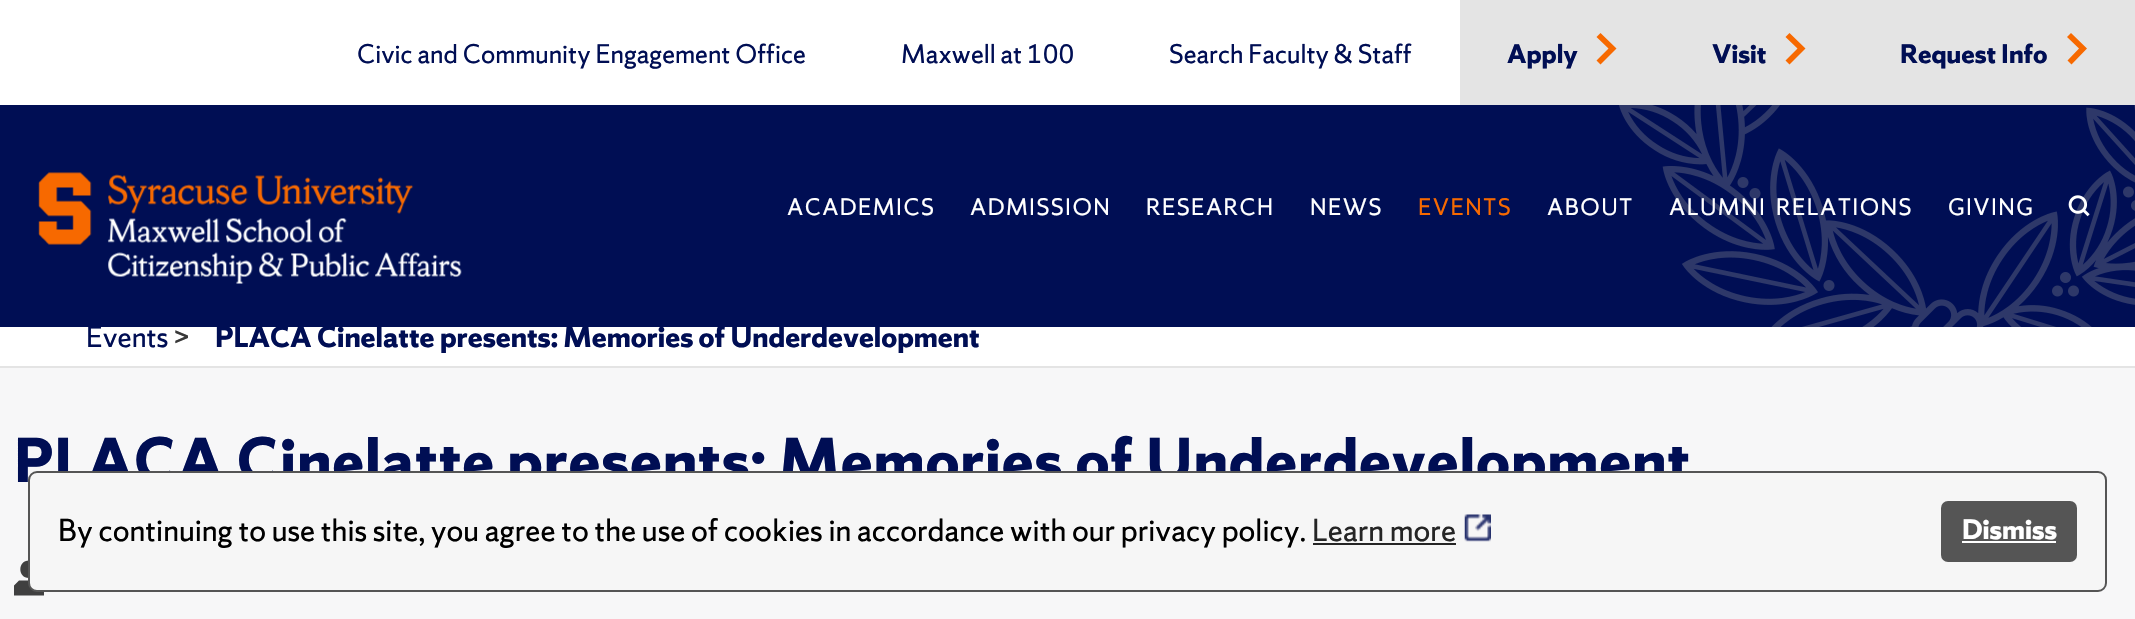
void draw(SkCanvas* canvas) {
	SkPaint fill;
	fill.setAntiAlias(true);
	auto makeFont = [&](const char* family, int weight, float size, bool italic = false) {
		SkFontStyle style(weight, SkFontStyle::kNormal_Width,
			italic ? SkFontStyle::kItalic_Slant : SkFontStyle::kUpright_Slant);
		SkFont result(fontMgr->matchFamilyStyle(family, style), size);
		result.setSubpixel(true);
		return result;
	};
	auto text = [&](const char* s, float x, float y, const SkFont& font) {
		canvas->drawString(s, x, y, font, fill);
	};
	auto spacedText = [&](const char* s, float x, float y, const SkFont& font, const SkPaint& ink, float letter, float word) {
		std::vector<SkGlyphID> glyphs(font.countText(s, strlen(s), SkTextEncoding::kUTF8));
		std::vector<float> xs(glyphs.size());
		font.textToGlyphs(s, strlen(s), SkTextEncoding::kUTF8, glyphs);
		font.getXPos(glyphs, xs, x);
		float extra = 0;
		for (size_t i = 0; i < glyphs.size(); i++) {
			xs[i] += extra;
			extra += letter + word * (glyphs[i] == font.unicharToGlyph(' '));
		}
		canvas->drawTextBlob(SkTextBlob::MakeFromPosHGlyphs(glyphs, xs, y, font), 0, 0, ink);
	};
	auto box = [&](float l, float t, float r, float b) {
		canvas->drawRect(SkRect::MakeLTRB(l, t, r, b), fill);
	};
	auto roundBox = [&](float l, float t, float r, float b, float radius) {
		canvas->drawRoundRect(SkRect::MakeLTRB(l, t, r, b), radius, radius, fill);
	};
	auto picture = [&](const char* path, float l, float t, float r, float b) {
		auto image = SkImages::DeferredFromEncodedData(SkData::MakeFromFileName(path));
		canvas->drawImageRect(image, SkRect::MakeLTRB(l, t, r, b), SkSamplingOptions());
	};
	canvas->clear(0xFFF7F7F8);
	fill.setColor(0xFFFFFFFF);
	box(0, 0, 1460, 105);
	fill.setColor(0xFFE4E4E4);
	box(1460, 0, 2135, 105);
	fill.setColor(0xFFF76900);
	canvas->drawPath(SkPathBuilder().moveTo(1596.5f, 37).lineTo(1608.5f, 48.5f).lineTo(1596.5f, 60.5f).lineTo(1600.5f, 64.5f).lineTo(1616.5f, 48.5f).lineTo(1600.5f, 33).close().detach(), fill);
	canvas->drawPath(SkPathBuilder().moveTo(1785.5f, 37).lineTo(1797.5f, 48.5f).lineTo(1785.5f, 60.5f).lineTo(1789.5f, 64.5f).lineTo(1805.5f, 48.5f).lineTo(1789.5f, 33).close().detach(), fill);
	canvas->drawPath(SkPathBuilder().moveTo(2067, 37).lineTo(2079, 48.5f).lineTo(2067.5f, 60.5f).lineTo(2071.5f, 64.5f).lineTo(2087, 48.5f).lineTo(2071, 33).close().detach(), fill);
	fill.setColor(0xFF000E54);
	box(0, 105, 2135, 327);
	picture("image0.png", 1619, 105, 2135, 327);
	picture("image1.png", 38, 172, 462, 284);
	picture("image2.png", 2068, 195, 2090, 217);
	fill.setColor(0xFFFFFFFF);
	box(0, 327, 2135, 366);
	fill.setColor(0xFFE4E4E4);
	box(0, 366, 2135, 368);
	fill.setColor(0xFF404040);
	canvas->drawPath(SkPathBuilder().moveTo(29, 578).cubicTo(40.5f, 578, 40.5f, 560.5f, 29, 560.5f).cubicTo(17.5f, 560.5f, 17.5f, 578, 29, 578).close().moveTo(39, 580.5f).lineTo(19, 580.5f).lineTo(14, 585.5f).lineTo(14, 595.5f).lineTo(44, 595.5f).lineTo(44, 585.5f).close().detach(), fill);
	auto font1 = makeFont("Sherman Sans", 400, 23.75f);
	fill.setColor(0xFF000E54);
	text("Civic and Community Engagement Office", 357, 63, font1);
	text("Maxwell at 100", 901, 63, font1);
	text("Search Faculty & Staff", 1169, 63, font1);
	auto font2 = makeFont("Sherman Sans", 700, 23.75f);
	text("Apply", 1507, 63, font2);
	text("Visit", 1712, 63, font2);
	text("Request Info", 1900, 63, font2);
	auto font3 = makeFont("Sherman Sans", 400, 21);
	fill.setColor(0xFFFFFFFF);
	spacedText("ACADEMICS", 787, 215, font3, fill, 1.4f, 0);
	spacedText("ADMISSION", 970, 215, font3, fill, 1.4f, 0);
	spacedText("RESEARCH", 1146, 215, font3, fill, 1.4f, 0);
	spacedText("NEWS", 1310, 215, font3, fill, 1.4f, 0);
	fill.setColor(0xFFF76900);
	spacedText("EVENTS", 1418, 215, font3, fill, 1.4f, 0);
	fill.setColor(0xFFFFFFFF);
	spacedText("ABOUT", 1547, 215, font3, fill, 1.4f, 0);
	spacedText("ALUMNI RELATIONS", 1669, 215, font3, fill, 1.4f, 4);
	spacedText("GIVING", 1948, 215, font3, fill, 1.4f, 0);
	auto font4 = makeFont("Sherman Sans", 400, 26.25f);
	fill.setColor(0xFF000E54);
	text("Events", 86, 347, font4);
	fill.setColor(0xFF383838);
	text(">", 173, 347, font4);
	auto font5 = makeFont("Sherman Sans", 700, 26.25f);
	fill.setColor(0xFF000E54);
	text("PLACA Cinelatte presents: Memories of Underdevelopment", 215, 347, font5);
	auto font6 = makeFont("Sherman Sans", 700, 56);
	spacedText("PLACA Cinelatte presents: Memories of Underdevelopment", 14, 482, font6, fill, 0.85f, 0);
	fill.setColor(0xFFF6F6F6);
	canvas->drawRoundRect(SkRect::MakeLTRB(29, 472, 2106, 591), 8, 8, fill);
	fill.setStyle(SkPaint::kStroke_Style);
	fill.setStrokeWidth(2);
	fill.setColor(0xFF555555);
	canvas->drawRoundRect(SkRect::MakeLTRB(29, 472, 2106, 591), 8, 8, fill);
	auto font7 = makeFont("Sherman Sans", 400, 28);
	fill.setStyle(SkPaint::kFill_Style);
	fill.setColor(0xFF000000);
	text("By continuing to use this site, you agree to the use of cookies in accordance with our privacy policy.", 58, 541, font7);
	fill.setColor(0xFF252525);
	text("Learn more", 1312, 541, font7);
	box(1313, 543, 1456, 545);
	picture("image3.png", 1464, 514, 1491, 542);
	fill.setColor(0xFF555555);
	roundBox(1941, 501, 2077, 562, 7);
	auto font8 = makeFont("Sherman Sans", 700, 25);
	fill.setColor(0xFFFFFFFF);
	text("Dismiss", 1962, 539, font8);
	box(1962, 541, 2056, 543);
}
